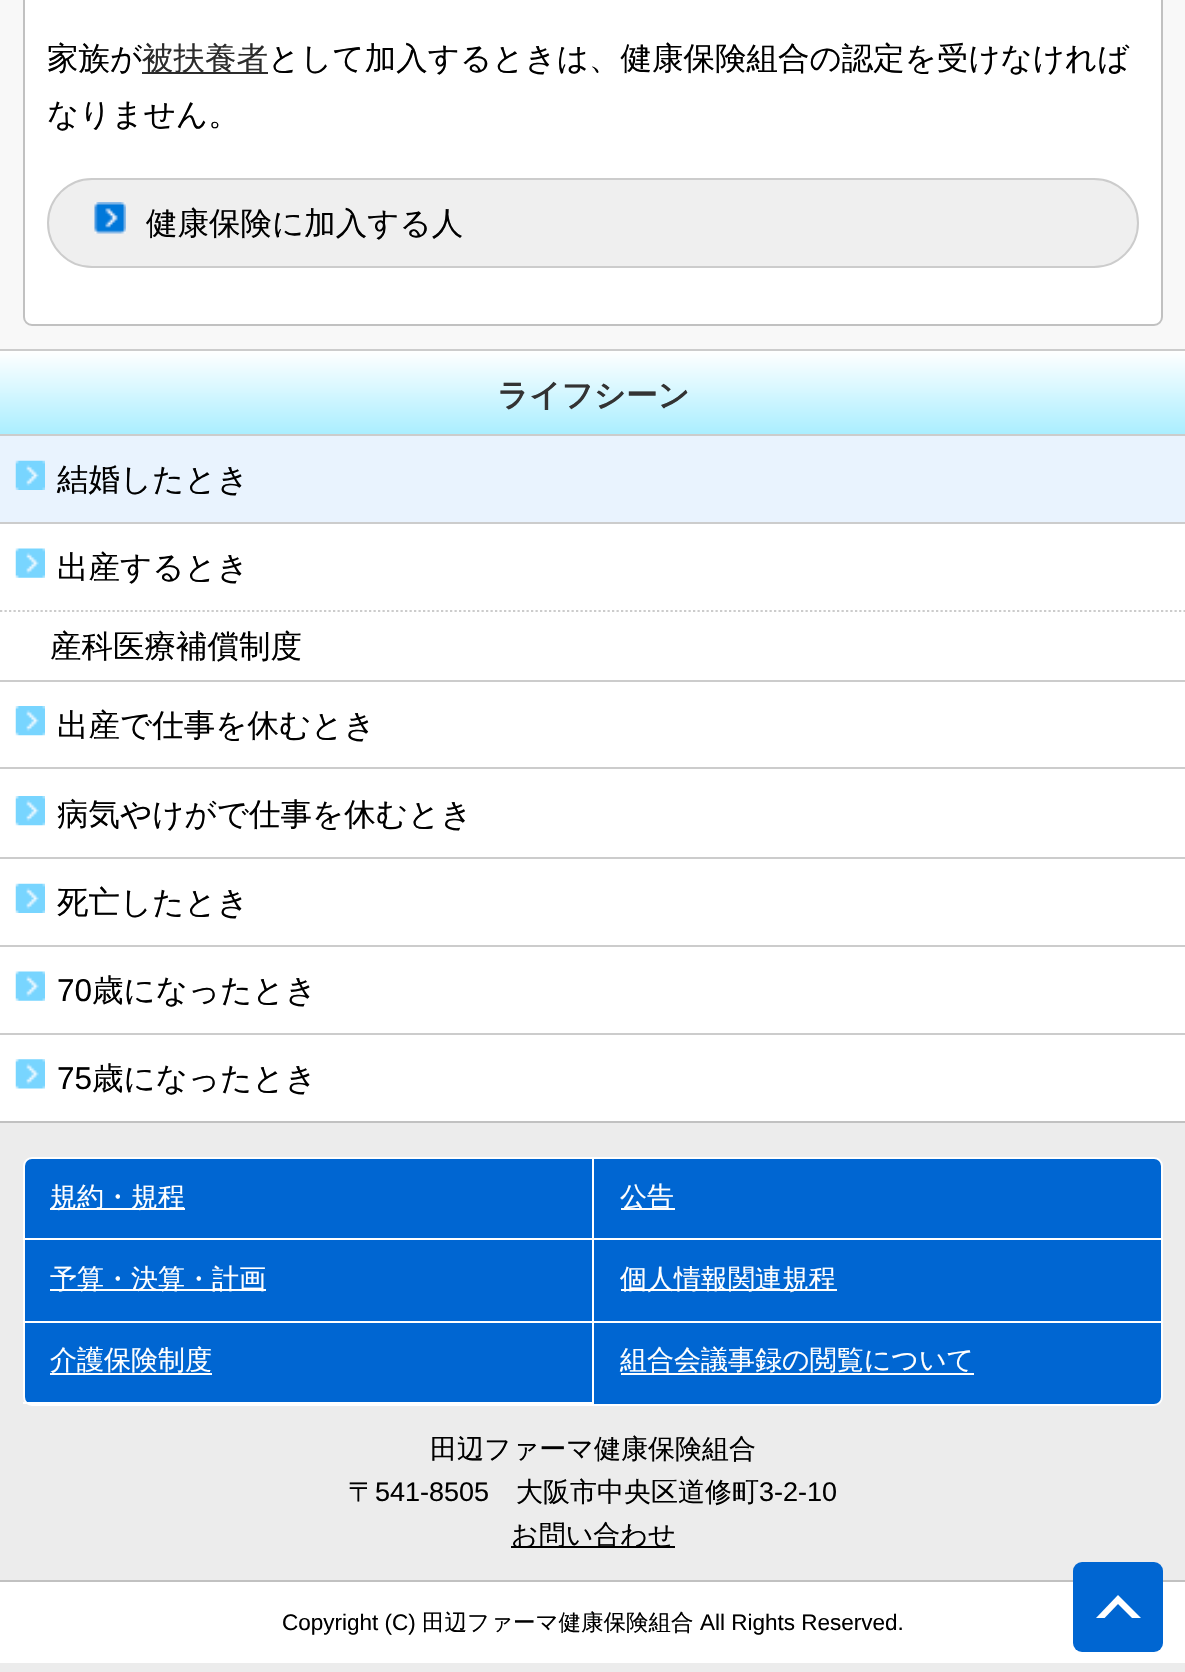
void draw(SkCanvas* canvas) {
	SkPaint fill;
	fill.setAntiAlias(true);
	auto makeFont = [&](const char* family, int weight, float size, bool italic = false) {
		SkFontStyle style(weight, SkFontStyle::kNormal_Width,
			italic ? SkFontStyle::kItalic_Slant : SkFontStyle::kUpright_Slant);
		SkFont result(fontMgr->matchFamilyStyle(family, style), size);
		result.setSubpixel(true);
		return result;
	};
	auto text = [&](const char* s, float x, float y, const SkFont& font) {
		canvas->drawString(s, x, y, font, fill);
	};
	auto box = [&](float l, float t, float r, float b) {
		canvas->drawRect(SkRect::MakeLTRB(l, t, r, b), fill);
	};
	auto roundBox = [&](float l, float t, float r, float b, float radius) {
		canvas->drawRoundRect(SkRect::MakeLTRB(l, t, r, b), radius, radius, fill);
	};
	auto picture = [&](const char* path, float l, float t, float r, float b) {
		auto image = SkImages::DeferredFromEncodedData(SkData::MakeFromFileName(path));
		canvas->drawImageRect(image, SkRect::MakeLTRB(l, t, r, b), SkSamplingOptions());
	};
	canvas->clear(0xFFECECEC);
	fill.setColor(0xFFF8F8F8);
	box(0, 0, 1185, 349);
	fill.setColor(0xFFFFFFFF);
	canvas->drawRoundRect(SkRect::MakeLTRB(24, -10, 1162, 325), 8, 8, fill);
	fill.setStyle(SkPaint::kStroke_Style);
	fill.setStrokeWidth(2);
	fill.setColor(0xFFC1C1C1);
	canvas->drawRoundRect(SkRect::MakeLTRB(24, -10, 1162, 325), 8, 8, fill);
	fill.setStyle(SkPaint::kFill_Style);
	fill.setColor(0xFFEFEFEF);
	canvas->drawRoundRect(SkRect::MakeLTRB(48, 179, 1138, 267), 44, 44, fill);
	fill.setStyle(SkPaint::kStroke_Style);
	fill.setColor(0xFFCCCCCC);
	canvas->drawRoundRect(SkRect::MakeLTRB(48, 179, 1138, 267), 44, 44, fill);
	picture("image0.png", 94, 202, 126, 234);
	fill.setStyle(SkPaint::kFill_Style);
	{
		const SkColor colors[] = {0xFFFFFFFF, 0xFFAAEEFF};
		const float stops[] = {0, 1};
		const SkPoint ends[] = {{593, 351}, {593, 434}};
		fill.setShader(SkGradientShader::MakeLinear(ends, colors, stops, 2, SkTileMode::kClamp));
		fill.setAlpha(255);
	}
	box(0, 351, 1185, 434);
	fill.setShader(nullptr);
	fill.setColor(0xFFCCCCCC);
	box(0, 349, 1185, 351);
	fill.setColor(0xFFFFFFFF);
	box(0, 524, 1185, 1121);
	fill.setColor(0xFFE9F3FE);
	box(0, 436, 1185, 522);
	picture("image1.png", 15, 460, 45, 490);
	fill.setColor(0xFFCCCCCC);
	box(0, 434, 1185, 436);
	picture("image2.png", 15, 548, 45, 578);
	box(0, 522, 1185, 524);
	fill.setStyle(SkPaint::kStroke_Style);
	fill.setStrokeWidth(2.2f);
	fill.setPathEffect(SkDashPathEffect::Make({{2.25f, 2.25f}}, 0));
	canvas->drawPath(SkPathBuilder().moveTo(0, 611).lineTo(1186, 611).detach(), fill);
	fill.setPathEffect(nullptr);
	picture("image3.png", 15, 706, 45, 736);
	fill.setStyle(SkPaint::kFill_Style);
	box(0, 680, 1185, 682);
	picture("image3.png", 15, 796, 45, 826);
	box(0, 767, 1185, 769);
	picture("image4.png", 15, 883, 45, 913);
	box(0, 857, 1185, 859);
	picture("image5.png", 15, 971, 45, 1001);
	box(0, 945, 1185, 947);
	picture("image6.png", 15, 1059, 45, 1089);
	box(0, 1033, 1185, 1035);
	fill.setColor(0xFFC1C1C1);
	box(0, 1121, 1185, 1123);
	fill.setColor(0xFF0066D2);
	canvas->drawRoundRect(SkRect::MakeLTRB(24, 1158, 1162, 1405), 8, 8, fill);
	fill.setStyle(SkPaint::kStroke_Style);
	fill.setStrokeWidth(2);
	fill.setColor(0xFFFFFFFF);
	canvas->drawRoundRect(SkRect::MakeLTRB(24, 1158, 1162, 1405), 8, 8, fill);
	fill.setStyle(SkPaint::kFill_Style);
	box(592, 1159, 594, 1404);
	box(23, 1238, 1161, 1240);
	box(50, 1208, 185, 1210);
	box(621, 1208, 675, 1210);
	box(23, 1321, 1161, 1323);
	box(50, 1289, 266, 1291);
	box(621, 1289, 837, 1291);
	box(23, 1402, 594, 1404);
	box(50, 1373, 212, 1375);
	box(621, 1373, 974, 1375);
	fill.setColor(0xFF000000);
	box(511, 1546, 675, 1548);
	fill.setColor(0xFFFFFFFF);
	box(0, 1582, 1185, 1663);
	fill.setColor(0xFFC1C1C1);
	box(0, 1580, 1185, 1582);
	fill.setColor(0xFF0066D2);
	roundBox(1073, 1562, 1163, 1652, 9);
	fill.setColor(0xFFFFFFFF);
	canvas->drawPath(SkPathBuilder().moveTo(1141, 1618).lineTo(1096, 1618).lineTo(1118, 1595).close().detach(), fill);
	fill.setColor(0xFF0066D2);
	canvas->drawPath(SkPathBuilder().moveTo(1141, 1627).lineTo(1096, 1627).lineTo(1118, 1604).close().detach(), fill);
	auto font1 = makeFont("WenQuanYi Zen Hei", 500, 31.5f);
	fill.setColor(0xFF000000);
	text("家族が", 47, 69, font1);
	fill.setColor(0xFF2C2C2C);
	box(142, 72, 268, 74);
	text("被扶養者", 142, 69, font1);
	fill.setColor(0xFF000000);
	text("として加入するときは、健康保険組合の認定を受けなければ", 268, 69, font1);
	text("なりません。", 47, 125, font1);
	text("健康保険に加入する人", 146, 234, font1);
	auto font2 = makeFont("WenQuanYi Zen Hei", 700, 31.5f);
	fill.setColor(0xFF333333);
	text("ライフシーン", 497, 406, font2);
	fill.setColor(0xFF000000);
	text("結婚したとき", 57, 490, font1);
	text("出産するとき", 57, 578, font1);
	text("産科医療補償制度", 50, 657, font1);
	text("出産で仕事を休むとき", 57, 736, font1);
	text("病気やけがで仕事を休むとき", 57, 825, font1);
	text("死亡したとき", 57, 913, font1);
	auto font3 = makeFont("Liberation Sans", 400, 31.5f);
	text("70", 57, 1001, font3);
	text("歳になったとき", 92, 1001, font1);
	text("75", 57, 1089, font3);
	text("歳になったとき", 92, 1089, font1);
	auto font4 = makeFont("WenQuanYi Zen Hei", 500, 27);
	fill.setColor(0xFFFFFFFF);
	text("規約・規程", 50, 1206, font4);
	text("公告", 620, 1206, font4);
	text("予算・決算・計画", 50, 1288, font4);
	text("個人情報関連規程", 620, 1288, font4);
	text("介護保険制度", 50, 1369, font4);
	text("組合会議事録の閲覧について", 620, 1369, font4);
	fill.setColor(0xFF000000);
	text("田辺ファーマ健康保険組合", 430, 1458, font4);
	text("〒", 348, 1501, font4);
	auto font5 = makeFont("Liberation Sans", 400, 27);
	text("541-8505", 375, 1501, font5);
	text("大阪市中央区道修町", 516, 1501, font4);
	text("3-2-10", 759, 1501, font5);
	text("お問い合わせ", 511, 1544, font4);
	auto font6 = makeFont("Liberation Sans", 400, 22.5f);
	text("Copyright (C)", 282, 1630, font6);
	auto font7 = makeFont("WenQuanYi Zen Hei", 500, 22.5f);
	text("田辺ファーマ健康保険組合", 422, 1630, font7);
	text("All Rights Reserved.", 700, 1630, font6);
}
